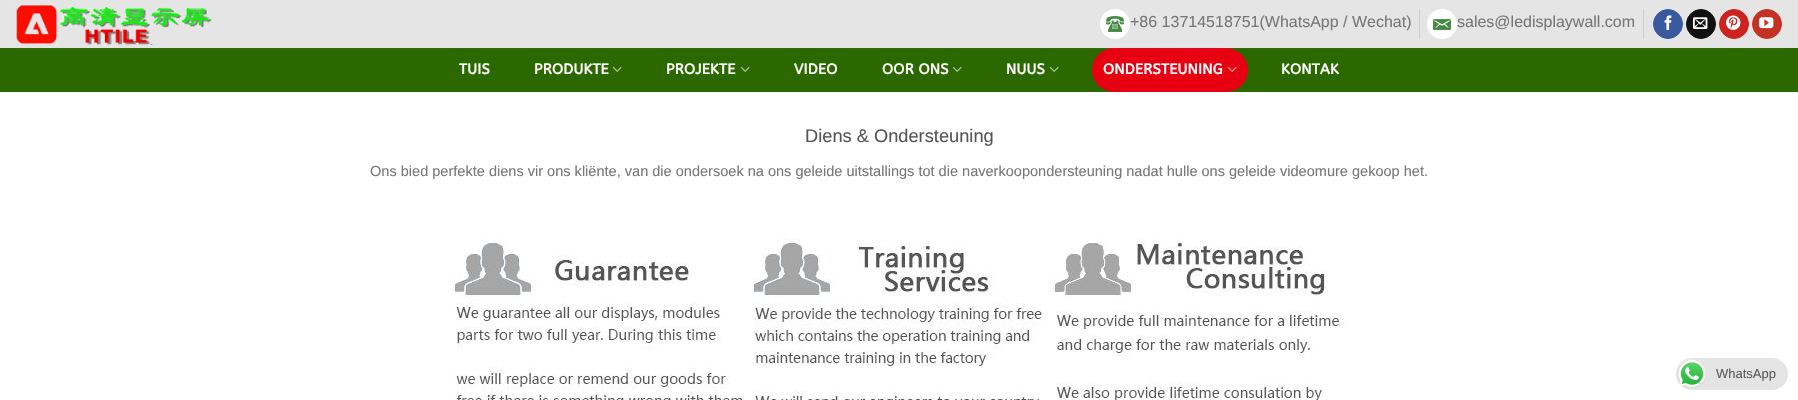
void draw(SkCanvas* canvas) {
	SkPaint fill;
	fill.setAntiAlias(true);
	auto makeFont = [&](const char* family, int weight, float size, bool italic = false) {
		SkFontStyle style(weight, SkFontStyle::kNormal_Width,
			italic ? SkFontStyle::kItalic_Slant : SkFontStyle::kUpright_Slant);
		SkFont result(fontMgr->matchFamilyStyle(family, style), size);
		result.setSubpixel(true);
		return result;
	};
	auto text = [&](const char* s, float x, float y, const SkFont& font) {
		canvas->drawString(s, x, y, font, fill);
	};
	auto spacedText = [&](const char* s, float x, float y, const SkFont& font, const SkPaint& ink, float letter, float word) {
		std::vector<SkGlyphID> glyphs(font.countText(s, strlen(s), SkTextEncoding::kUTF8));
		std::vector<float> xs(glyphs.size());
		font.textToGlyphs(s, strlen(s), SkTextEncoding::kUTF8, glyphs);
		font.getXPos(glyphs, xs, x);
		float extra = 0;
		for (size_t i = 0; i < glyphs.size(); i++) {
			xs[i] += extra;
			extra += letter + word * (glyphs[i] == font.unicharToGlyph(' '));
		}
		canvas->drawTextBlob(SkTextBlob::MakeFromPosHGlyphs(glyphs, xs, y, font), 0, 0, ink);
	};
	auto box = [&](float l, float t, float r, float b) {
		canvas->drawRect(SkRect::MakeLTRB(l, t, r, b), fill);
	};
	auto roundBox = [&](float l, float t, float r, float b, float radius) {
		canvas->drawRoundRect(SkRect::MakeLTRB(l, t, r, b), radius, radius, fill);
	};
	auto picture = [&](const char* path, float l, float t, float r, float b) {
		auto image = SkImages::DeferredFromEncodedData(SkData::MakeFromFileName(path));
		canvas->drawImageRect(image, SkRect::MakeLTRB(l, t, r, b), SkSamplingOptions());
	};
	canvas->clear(0xFFFFFFFF);
	fill.setColor(0xFFE5E5E5);
	box(0, 0, 1798, 48);
	picture("image0.png", 15, 3, 212, 45);
	picture("image1.png", 1100, 9, 1130, 39);
	fill.setColor(0xFFCECECE);
	box(1419, 9, 1420, 39);
	picture("image2.png", 1427, 9, 1457, 39);
	box(1643, 9, 1644, 39);
	fill.setColor(0xFF3A589D);
	canvas->drawCircle(1668, 24, 14.5f, fill);
	fill.setStyle(SkPaint::kStroke_Style);
	fill.setStrokeWidth(1);
	canvas->drawCircle(1668, 24, 14.5f, fill);
	picture("image3.png", 1664, 15, 1672, 30);
	fill.setStyle(SkPaint::kFill_Style);
	fill.setColor(0xFF111111);
	canvas->drawCircle(1701, 24, 14.5f, fill);
	fill.setStyle(SkPaint::kStroke_Style);
	canvas->drawCircle(1701, 24, 14.5f, fill);
	picture("image4.png", 1693, 17, 1708, 29);
	fill.setStyle(SkPaint::kFill_Style);
	fill.setColor(0xFFCB2320);
	canvas->drawCircle(1734, 24, 14.5f, fill);
	fill.setStyle(SkPaint::kStroke_Style);
	canvas->drawCircle(1734, 24, 14.5f, fill);
	picture("image5.png", 1726, 15, 1741, 30);
	fill.setStyle(SkPaint::kFill_Style);
	fill.setColor(0xFFC33223);
	canvas->drawCircle(1767, 24, 14.5f, fill);
	fill.setStyle(SkPaint::kStroke_Style);
	canvas->drawCircle(1767, 24, 14.5f, fill);
	picture("image6.png", 1759, 17, 1774, 29);
	fill.setStyle(SkPaint::kFill_Style);
	fill.setColor(0xFF2B6800);
	box(0, 48, 1798, 92);
	fill.setColor(0xFFE60012);
	roundBox(1092, 48, 1248, 92, 22);
	fill.setColor(0x1A777777);
	box(15, 48, 1783, 49);
	picture("image7.png", 612, 66, 622, 72);
	picture("image7.png", 740, 66, 750, 72);
	picture("image7.png", 952, 66, 962, 72);
	picture("image7.png", 1049, 66, 1059, 72);
	picture("image8.png", 1227, 66, 1237, 72);
	picture("image9.png", 449, 238, 1345, 400);
	fill.setColor(0xFFE4E4E4);
	roundBox(1676, 358, 1788, 390, 16);
	picture("image10.png", 1678, 360, 1706, 388);
	auto font1 = makeFont("Liberation Sans", 400, 16);
	fill.setColor(0xFF777777);
	text("+86 13714518751(WhatsApp / Wechat)", 1130, 27, font1);
	text("sales@ledisplaywall.com", 1457, 27, font1);
	auto font2 = makeFont("ABeeZee", 700, 14.55f);
	fill.setColor(0xFFFFFFFF);
	spacedText("TUIS", 459, 74, font2, fill, 0.25f, 0);
	spacedText("PRODUKTE", 534, 74, font2, fill, 0.25f, 0);
	spacedText("PROJEKTE", 666, 74, font2, fill, 0.25f, 0);
	spacedText("VIDEO", 794, 74, font2, fill, 0.25f, 0);
	spacedText("OOR ONS", 882, 74, font2, fill, 0.25f, 0);
	spacedText("NUUS", 1006, 74, font2, fill, 0.25f, 0);
	spacedText("ONDERSTEUNING", 1103, 74, font2, fill, 0.25f, 0);
	spacedText("KONTAK", 1281, 74, font2, fill, 0.25f, 0);
	auto font3 = makeFont("Liberation Sans", 400, 18.25f);
	fill.setColor(0xFF555555);
	text("Diens & Ondersteuning", 805, 142, font3);
	auto font4 = makeFont("Liberation Sans", 400, 14.55f);
	fill.setColor(0xFF777777);
	text("Ons bied perfekte diens vir ons kliënte, van die ondersoek na ons geleide uitstallings tot die naverkoopondersteuning nadat hulle ons geleide videomure gekoop het.", 370, 176, font4);
	auto font5 = makeFont("Liberation Sans", 400, 13);
	fill.setColor(0xFF5B5B5B);
	text("WhatsApp", 1716, 378, font5);
}
